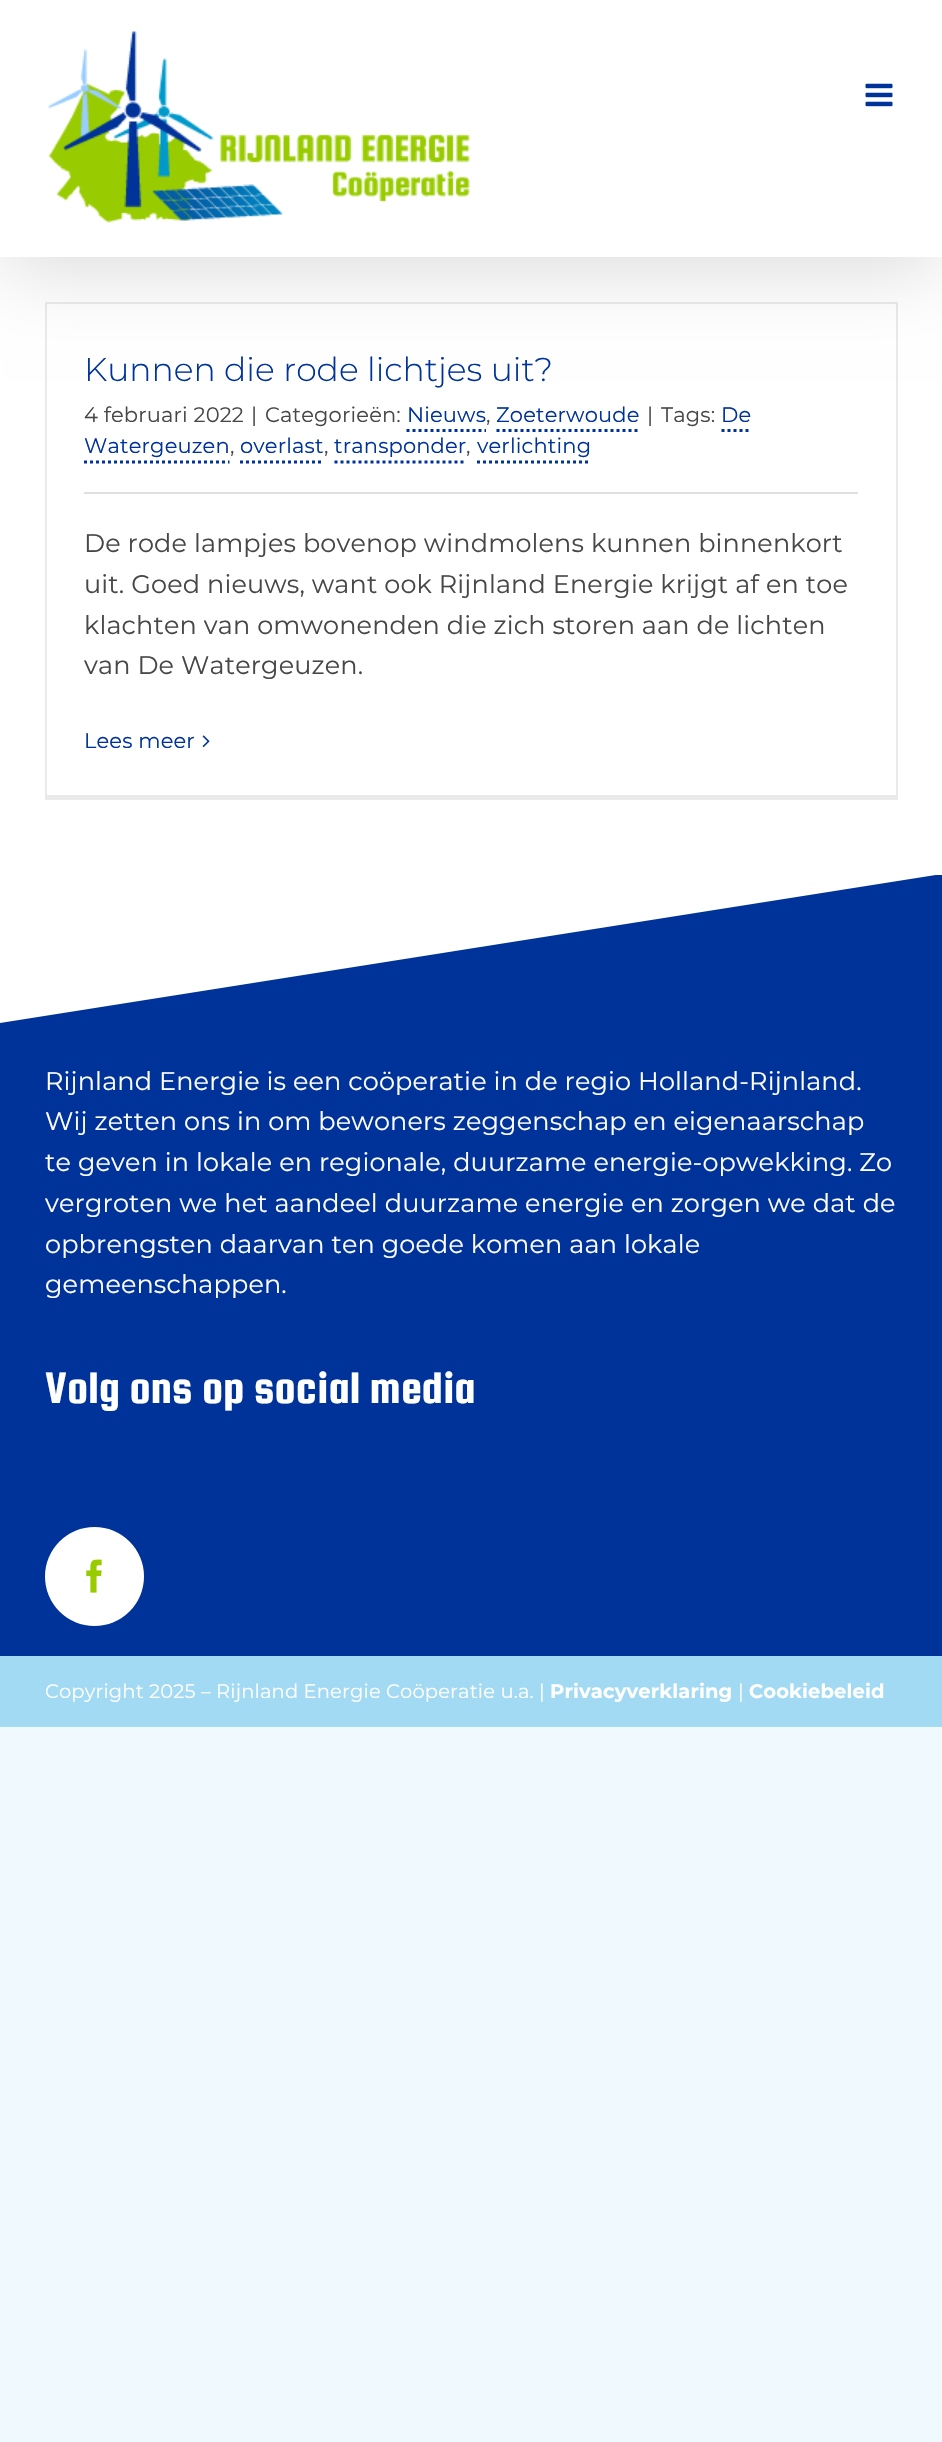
void draw(SkCanvas* canvas) {
	SkPaint fill;
	fill.setAntiAlias(true);
	auto makeFont = [&](const char* family, int weight, float size, bool italic = false) {
		SkFontStyle style(weight, SkFontStyle::kNormal_Width,
			italic ? SkFontStyle::kItalic_Slant : SkFontStyle::kUpright_Slant);
		SkFont result(fontMgr->matchFamilyStyle(family, style), size);
		result.setSubpixel(true);
		return result;
	};
	auto text = [&](const char* s, float x, float y, const SkFont& font) {
		canvas->drawString(s, x, y, font, fill);
	};
	auto spacedText = [&](const char* s, float x, float y, const SkFont& font, const SkPaint& ink, float letter, float word) {
		std::vector<SkGlyphID> glyphs(font.countText(s, strlen(s), SkTextEncoding::kUTF8));
		std::vector<float> xs(glyphs.size());
		font.textToGlyphs(s, strlen(s), SkTextEncoding::kUTF8, glyphs);
		font.getXPos(glyphs, xs, x);
		float extra = 0;
		for (size_t i = 0; i < glyphs.size(); i++) {
			xs[i] += extra;
			extra += letter + word * (glyphs[i] == font.unicharToGlyph(' '));
		}
		canvas->drawTextBlob(SkTextBlob::MakeFromPosHGlyphs(glyphs, xs, y, font), 0, 0, ink);
	};
	auto box = [&](float l, float t, float r, float b) {
		canvas->drawRect(SkRect::MakeLTRB(l, t, r, b), fill);
	};
	auto picture = [&](const char* path, float l, float t, float r, float b) {
		auto image = SkImages::DeferredFromEncodedData(SkData::MakeFromFileName(path));
		canvas->drawImageRect(image, SkRect::MakeLTRB(l, t, r, b), SkSamplingOptions());
	};
	canvas->clear(0xFFEFF9FE);
	fill.setColor(0xFFFFFFFF);
	box(0, 257, 942, 875);
	fill.setColor(0xFFEBEAEA);
	box(45, 302, 897, 304);
	box(896, 302, 898, 800);
	box(45, 795, 897, 800);
	box(45, 302, 47, 800);
	fill.setColor(0x24000000);
	fill.setMaskFilter(SkMaskFilter::MakeBlur(kNormal_SkBlurStyle, 37.5f));
	canvas->drawRect(SkRect::MakeLTRB(3, 18, 939, 269), fill);
	fill.setMaskFilter(nullptr);
	fill.setColor(0xFFFFFFFF);
	box(0, 0, 942, 257);
	picture("image0.png", 47, 31, 470, 223);
	picture("image1.png", 865, 83, 893, 107);
	fill.setStyle(SkPaint::kStroke_Style);
	fill.setStrokeWidth(3);
	fill.setColor(0xFF003399);
	fill.setPathEffect(SkDashPathEffect::Make({{3, 3}}, 0));
	canvas->drawPath(SkPathBuilder().moveTo(406.5f, 430.5f).lineTo(486, 430.5f).detach(), fill);
	fill.setPathEffect(nullptr);
	fill.setPathEffect(SkDashPathEffect::Make({{3, 3}}, 0));
	canvas->drawPath(SkPathBuilder().moveTo(496.5f, 430.5f).lineTo(639, 430.5f).detach(), fill);
	fill.setPathEffect(nullptr);
	fill.setPathEffect(SkDashPathEffect::Make({{3, 3}}, 0));
	canvas->drawPath(SkPathBuilder().moveTo(721.5f, 430.5f).lineTo(751.5f, 430.5f).detach(), fill);
	fill.setPathEffect(nullptr);
	fill.setPathEffect(SkDashPathEffect::Make({{3, 3}}, 0));
	canvas->drawPath(SkPathBuilder().moveTo(84, 462).lineTo(229.5f, 462).detach(), fill);
	fill.setPathEffect(nullptr);
	fill.setPathEffect(SkDashPathEffect::Make({{3, 3}}, 0));
	canvas->drawPath(SkPathBuilder().moveTo(240, 462).lineTo(324, 462).detach(), fill);
	fill.setPathEffect(nullptr);
	fill.setPathEffect(SkDashPathEffect::Make({{3, 3}}, 0));
	canvas->drawPath(SkPathBuilder().moveTo(334.5f, 462).lineTo(466.5f, 462).detach(), fill);
	fill.setPathEffect(nullptr);
	fill.setPathEffect(SkDashPathEffect::Make({{3, 3}}, 0));
	canvas->drawPath(SkPathBuilder().moveTo(477, 462).lineTo(591, 462).detach(), fill);
	fill.setPathEffect(nullptr);
	fill.setStyle(SkPaint::kFill_Style);
	fill.setColor(0xFFE0E0E0);
	box(84, 492, 858, 494);
	picture("image2.png", 202, 735, 210, 748);
	fill.setColor(0xFF003399);
	box(0, 875, 942, 1656);
	canvas->save();
	canvas->clipRect(SkRect::MakeLTRB(0, 875, 942, 1023));
	fill.setColor(0xFFFFFFFF);
	canvas->drawPath(SkPathBuilder().moveTo(0, 1023).lineTo(0, 874).lineTo(942, 874).close().detach(), fill);
	canvas->restore();
	canvas->drawCircle(94.5f, 1576.5f, 49.5f, fill);
	picture("image3.png", 86, 1559, 102, 1593);
	fill.setColor(0xFFA2D9F3);
	box(0, 1656, 942, 1727);
	auto font1 = makeFont("Montserrat", 300, 33);
	fill.setColor(0xFF003399);
	text("Kunnen die rode lichtjes uit?", 84, 381, font1);
	auto font2 = makeFont("Montserrat", 400, 21);
	fill.setColor(0xFF474747);
	spacedText("4 februari 2022", 84, 422, font2, fill, 0.15f, 0);
	spacedText("|", 251, 422, font2, fill, 0.15f, 0);
	spacedText("Categorieën:", 265, 422, font2, fill, 0.15f, 0);
	fill.setColor(0xFF003399);
	spacedText("Nieuws", 407, 422, font2, fill, 0.15f, 0);
	fill.setColor(0xFF474747);
	spacedText(",", 486, 422, font2, fill, 0.15f, 0);
	fill.setColor(0xFF003399);
	spacedText("Zoeterwoude", 496, 422, font2, fill, 0.15f, 0);
	fill.setColor(0xFF474747);
	spacedText("|", 647, 422, font2, fill, 0.15f, 0);
	spacedText("Tags:", 661, 422, font2, fill, 0.15f, 0);
	fill.setColor(0xFF003399);
	spacedText("De", 721, 422, font2, fill, 0.15f, 0);
	spacedText("Watergeuzen", 84, 453, font2, fill, 0.15f, 0);
	fill.setColor(0xFF474747);
	spacedText(",", 230, 453, font2, fill, 0.15f, 0);
	fill.setColor(0xFF003399);
	spacedText("overlast", 240, 453, font2, fill, 0.15f, 0);
	fill.setColor(0xFF474747);
	spacedText(",", 324, 453, font2, fill, 0.15f, 0);
	fill.setColor(0xFF003399);
	spacedText("transponder", 334, 453, font2, fill, 0.15f, 0);
	fill.setColor(0xFF474747);
	spacedText(",", 466, 453, font2, fill, 0.15f, 0);
	fill.setColor(0xFF003399);
	spacedText("verlichting", 477, 453, font2, fill, 0.15f, 0);
	auto font3 = makeFont("Montserrat", 400, 25.5f);
	fill.setColor(0xFF474747);
	spacedText("De rode lampjes bovenop windmolens kunnen binnenkort", 84, 552, font3, fill, 0.15f, 0);
	spacedText("uit. Goed nieuws, want ook Rijnland Energie krijgt af en toe", 84, 593, font3, fill, 0.15f, 0);
	spacedText("klachten van omwonenden die zich storen aan de lichten", 84, 634, font3, fill, 0.15f, 0);
	spacedText("van De Watergeuzen.", 84, 674, font3, fill, 0.15f, 0);
	fill.setColor(0xFF003399);
	spacedText("Lees meer", 84, 748, font2, fill, 0.15f, 0);
	fill.setColor(0xFFFFFFFF);
	spacedText("Rijnland Energie is een coöperatie in de regio Holland-Rijnland.", 45, 1090, font3, fill, 0.15f, 0);
	spacedText("Wij zetten ons in om bewoners zeggenschap en eigenaarschap", 45, 1130, font3, fill, 0.15f, 0);
	spacedText("te geven in lokale en regionale, duurzame energie-opwekking. Zo", 45, 1171, font3, fill, 0.15f, 0);
	spacedText("vergroten we het aandeel duurzame energie en zorgen we dat de", 45, 1212, font3, fill, 0.15f, 0);
	spacedText("opbrengsten daarvan ten goede komen aan lokale", 45, 1253, font3, fill, 0.15f, 0);
	spacedText("gemeenschappen.", 45, 1293, font3, fill, 0.15f, 0);
	auto font4 = makeFont("Squada One", 400, 47.1f);
	text("Volg ons op social media", 45, 1403, font4);
	auto font5 = makeFont("Montserrat", 400, 19.5f);
	spacedText("Copyright 2025 – Rijnland Energie Coöperatie u.a. |", 45, 1698, font5, fill, 0.15f, 0);
	auto font6 = makeFont("Montserrat", 700, 19.5f);
	spacedText("Privacyverklaring", 550, 1698, font6, fill, 0.15f, 0);
	spacedText("|", 738, 1698, font5, fill, 0.15f, 0);
	spacedText("Cookiebeleid", 749, 1698, font6, fill, 0.15f, 0);
}
